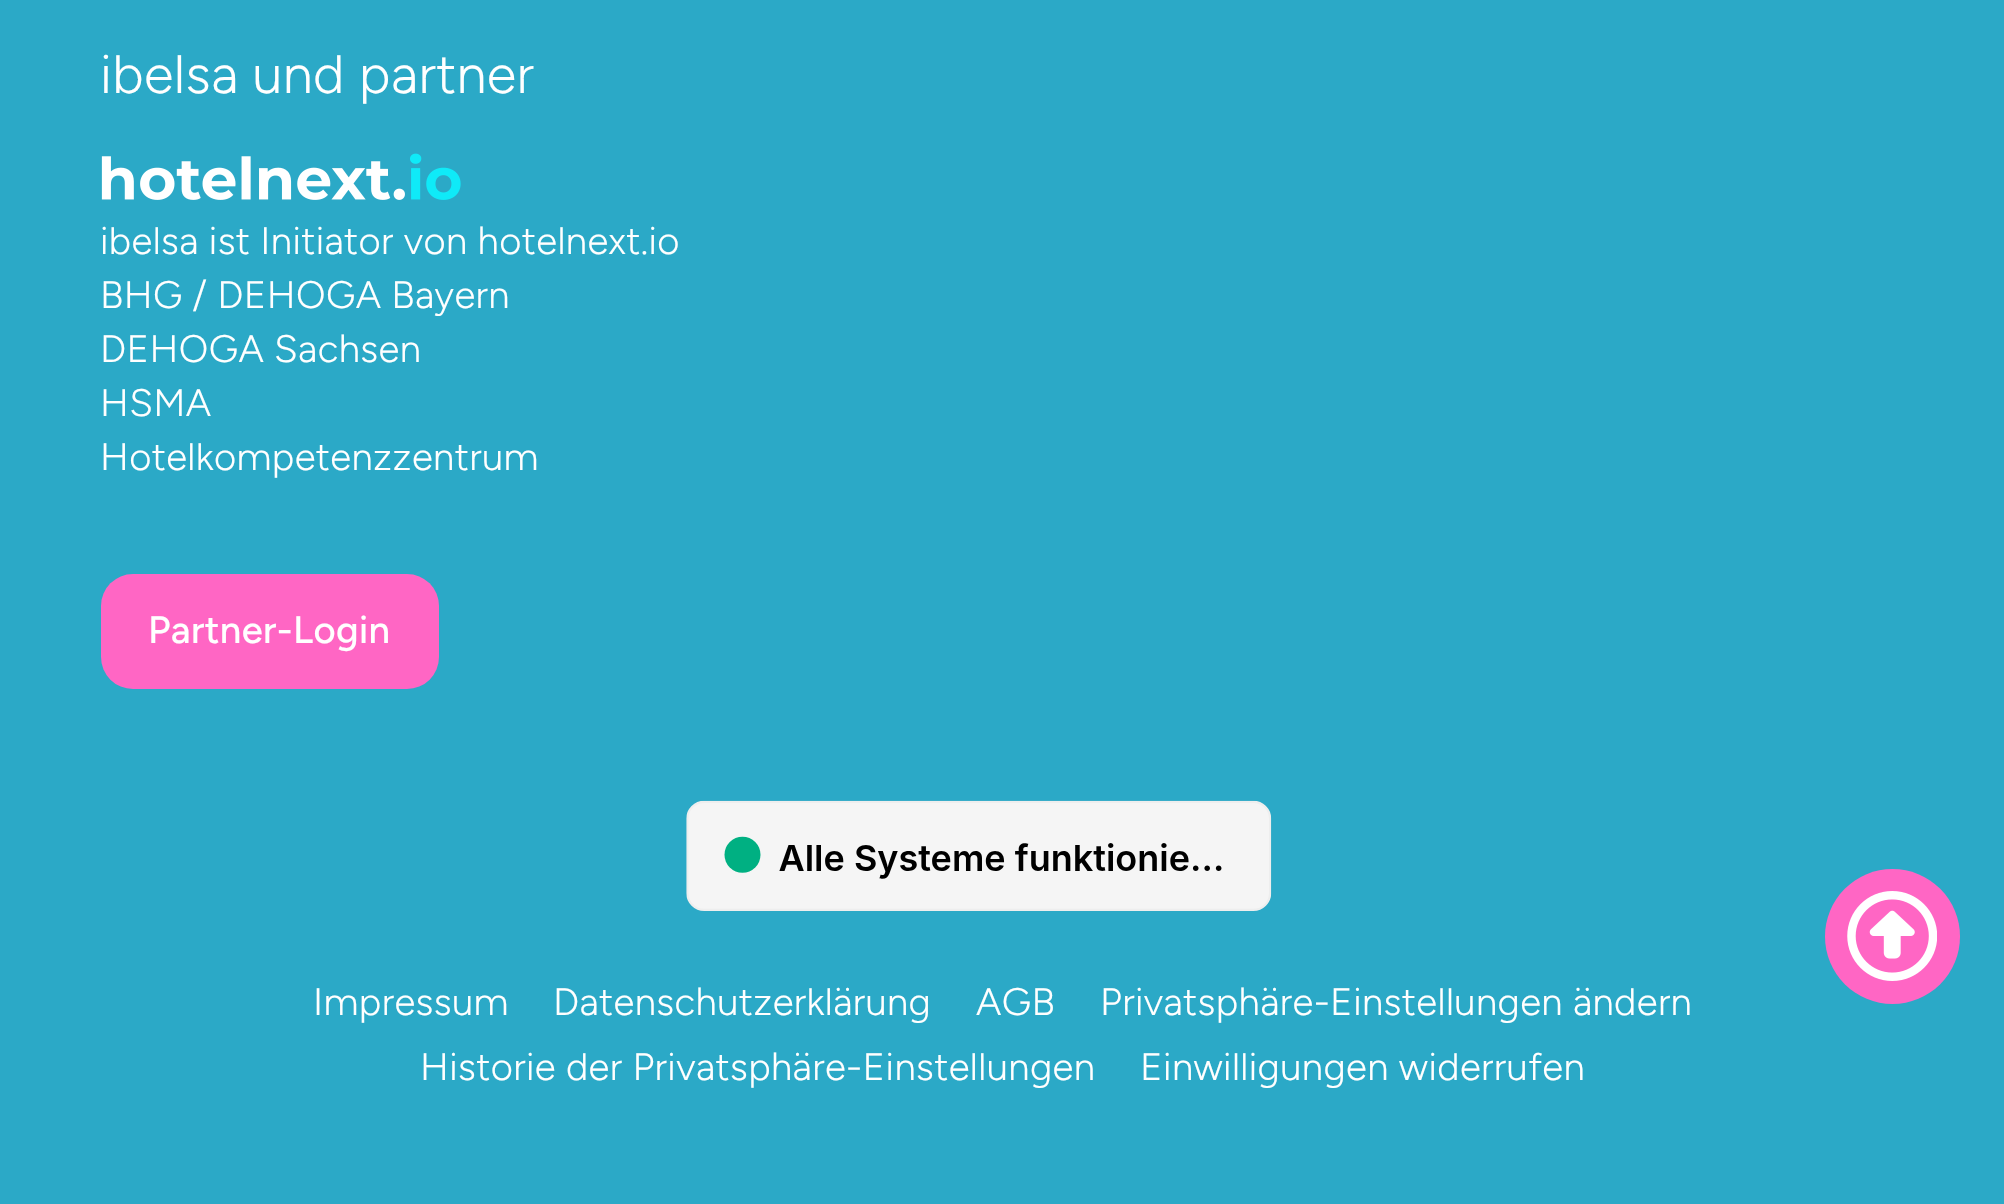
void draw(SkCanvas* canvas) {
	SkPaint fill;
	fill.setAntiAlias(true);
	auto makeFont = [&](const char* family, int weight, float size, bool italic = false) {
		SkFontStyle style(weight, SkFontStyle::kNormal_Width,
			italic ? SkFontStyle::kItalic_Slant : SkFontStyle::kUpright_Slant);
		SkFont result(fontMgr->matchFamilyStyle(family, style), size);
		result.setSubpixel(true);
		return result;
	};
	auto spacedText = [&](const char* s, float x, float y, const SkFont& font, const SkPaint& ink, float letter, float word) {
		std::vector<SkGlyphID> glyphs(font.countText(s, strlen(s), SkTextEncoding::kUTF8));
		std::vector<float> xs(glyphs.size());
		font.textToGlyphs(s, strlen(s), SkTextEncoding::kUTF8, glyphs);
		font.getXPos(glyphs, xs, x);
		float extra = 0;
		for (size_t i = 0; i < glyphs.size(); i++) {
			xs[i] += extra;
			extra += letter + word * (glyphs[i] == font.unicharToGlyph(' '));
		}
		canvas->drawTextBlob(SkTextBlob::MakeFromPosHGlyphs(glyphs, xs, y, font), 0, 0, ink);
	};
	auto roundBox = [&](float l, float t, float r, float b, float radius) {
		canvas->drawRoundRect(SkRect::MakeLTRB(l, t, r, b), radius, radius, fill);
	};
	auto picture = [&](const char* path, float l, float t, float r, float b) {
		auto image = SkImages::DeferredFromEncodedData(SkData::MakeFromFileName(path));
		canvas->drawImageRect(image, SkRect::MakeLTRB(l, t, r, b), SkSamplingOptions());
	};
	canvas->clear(0xFF2BA9C7);
	picture("image0.png", 101, 153, 461, 200);
	fill.setColor(0xFFFF66C4);
	roundBox(101, 574, 439, 689, 32);
	picture("image1.png", 686, 800, 1272, 911);
	canvas->drawCircle(1892.5f, 936.5f, 67.5f, fill);
	picture("image2.png", 1847, 891, 1937, 981);
	auto font1 = makeFont("Figtree", 300, 54);
	fill.setColor(0xFFFFFFFF);
	spacedText("ibelsa und partner", 100, 93, font1, fill, 0.4f, 0);
	auto font2 = makeFont("Figtree", 300, 38.25f);
	spacedText("ibelsa ist Initiator von hotelnext.io", 100, 254, font2, fill, 0.4f, 0);
	spacedText("BHG / DEHOGA Bayern", 100, 308, font2, fill, 0.4f, 0);
	spacedText("DEHOGA Sachsen", 100, 362, font2, fill, 0.4f, 0);
	spacedText("HSMA", 100, 416, font2, fill, 0.4f, 0);
	spacedText("Hotelkompetenzzentrum", 100, 470, font2, fill, 0.4f, 0);
	auto font3 = makeFont("Figtree", 500, 38.25f);
	spacedText("Partner-Login", 148, 643, font3, fill, 0.4f, 0);
	spacedText("Impressum", 313, 1015, font2, fill, 0.4f, 0);
	spacedText("Datenschutzerklärung", 553, 1015, font2, fill, 0.4f, 0);
	spacedText("AGB", 976, 1015, font2, fill, 0.4f, 0);
	spacedText("Privatsphäre-Einstellungen ändern", 1100, 1015, font2, fill, 0.4f, 0);
	spacedText("Historie der Privatsphäre-Einstellungen", 420, 1080, font2, fill, 0.4f, 0);
	spacedText("Einwilligungen widerrufen", 1140, 1080, font2, fill, 0.4f, 0);
}
